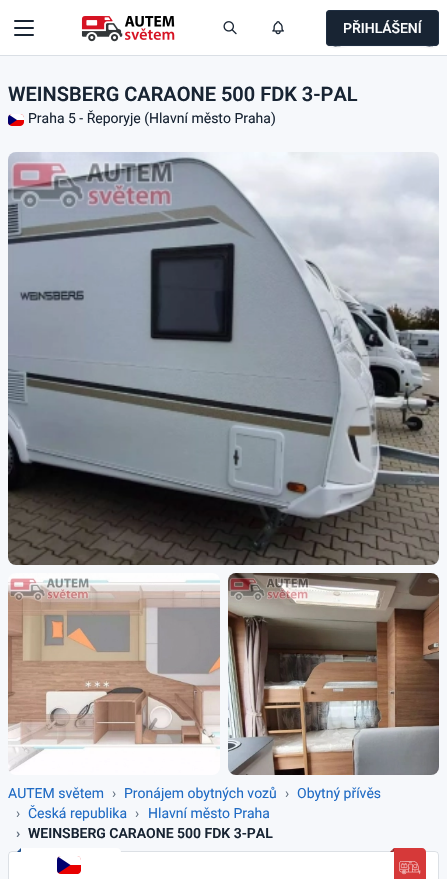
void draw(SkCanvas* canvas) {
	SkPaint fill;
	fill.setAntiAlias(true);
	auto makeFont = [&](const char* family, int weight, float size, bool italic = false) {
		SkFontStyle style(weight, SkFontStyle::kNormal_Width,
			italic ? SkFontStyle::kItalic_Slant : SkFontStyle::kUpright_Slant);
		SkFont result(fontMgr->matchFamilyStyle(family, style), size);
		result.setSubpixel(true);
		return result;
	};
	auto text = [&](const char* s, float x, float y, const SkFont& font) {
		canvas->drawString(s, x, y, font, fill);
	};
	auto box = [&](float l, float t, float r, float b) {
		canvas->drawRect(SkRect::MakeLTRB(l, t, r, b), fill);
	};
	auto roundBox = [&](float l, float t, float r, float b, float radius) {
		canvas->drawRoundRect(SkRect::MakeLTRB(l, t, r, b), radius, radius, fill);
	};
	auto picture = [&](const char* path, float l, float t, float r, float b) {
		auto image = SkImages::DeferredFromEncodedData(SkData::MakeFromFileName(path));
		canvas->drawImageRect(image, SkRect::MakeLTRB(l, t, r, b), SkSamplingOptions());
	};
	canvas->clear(0xFFF6F8FB);
	fill.setColor(0xFFFFFFFF);
	box(0, 0, 447, 55);
	fill.setColor(0xFFDADFE5);
	box(0, 55, 447, 56);
	fill.setColor(0xFF182433);
	roundBox(14, 27, 34, 29, 1);
	roundBox(14, 20, 34, 22, 1);
	roundBox(14, 34, 34, 36, 1);
	picture("image0.png", 81, 16, 175, 42);
	picture("image1.png", 223, 21, 237, 35);
	picture("image2.png", 272, 21, 284, 35);
	fill.setColor(0xFFF6F6F7);
	canvas->drawPath(SkPathBuilder().moveTo(326, 42).cubicTo(326, 52, 344, 47, 348, 47).lineTo(418, 47).cubicTo(421, 47, 439, 52, 439, 42).cubicTo(439, 44, 437, 46, 435, 46).lineTo(330, 46).cubicTo(328, 46, 326, 44, 326, 42).close().detach(), fill);
	fill.setColor(0xFF182433);
	roundBox(326, 10, 439, 46, 4);
	canvas->drawPath(SkPathBuilder().moveTo(327, 41).cubicTo(327, 50, 345, 45, 348, 45).lineTo(418, 45).cubicTo(420, 45, 438, 50, 438, 41).cubicTo(438, 43, 437, 44, 435, 44).lineTo(330, 44).cubicTo(328, 44, 327, 43, 327, 41).close().detach(), fill);
	fill.setStyle(SkPaint::kStroke_Style);
	fill.setStrokeWidth(1);
	fill.setColor(0xFF1F2E41);
	canvas->drawRoundRect(SkRect::MakeLTRB(326.5f, 10.5f, 438.5f, 45.5f), 3.5f, 3.5f, fill);
	picture("image3.png", 8, 114, 24, 126);
	picture("image4.png", 8, 152, 439, 565);
	picture("image5.png", 8, 573, 220, 775);
	picture("image6.png", 228, 573, 439, 775);
	fill.setStyle(SkPaint::kFill_Style);
	fill.setColor(0xFFFFFFFF);
	roundBox(8, 851, 439, 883, 4);
	fill.setStyle(SkPaint::kStroke_Style);
	fill.setColor(0x24042045);
	canvas->drawRoundRect(SkRect::MakeLTRB(8.5f, 851.5f, 438.5f, 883.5f), 3.5f, 3.5f, fill);
	fill.setStyle(SkPaint::kFill_Style);
	fill.setColor(0xFFFFFFFF);
	canvas->drawPath(SkPathBuilder().moveTo(21, 848).lineTo(117, 848).cubicTo(119, 848, 121, 850, 121, 852).lineTo(121, 878).cubicTo(121, 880, 119, 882, 117, 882).lineTo(25, 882).cubicTo(23, 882, 21, 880, 21, 878).close().detach(), fill);
	fill.setColor(0xFF164B89);
	canvas->drawPath(SkPathBuilder().moveTo(21, 848).lineTo(21, 852).lineTo(19, 850).close().detach(), fill);
	canvas->drawPath(SkPathBuilder().moveTo(21, 852).lineTo(17, 852).lineTo(19, 850).close().detach(), fill);
	canvas->save();
	canvas->clipRect(SkRect::MakeLTRB(57, 856, 81, 874));
	fill.setColor(0xFFE80000);
	canvas->drawPath(SkPathBuilder().moveTo(61, 856).cubicTo(56, 856, 57, 862, 57, 865).cubicTo(57, 868.5f, 56, 874, 61, 874).lineTo(78, 874).cubicTo(82.5f, 873, 81, 866.5f, 81, 863.5f).cubicTo(81, 860.5f, 81, 856, 77, 856).close().detach(), fill);
	fill.setColor(0xFFFFFFFF);
	canvas->drawPath(SkPathBuilder().moveTo(61, 856).cubicTo(56, 856, 57, 862, 57, 865).lineTo(81, 865).cubicTo(81, 862, 82, 856, 77, 856).close().detach(), fill);
	canvas->restore();
	fill.setColor(0xFF00006F);
	canvas->drawPath(SkPathBuilder().moveTo(57, 860).cubicTo(57, 859, 57.5f, 857.5f, 58.5f, 857).lineTo(70.5f, 865).lineTo(58.5f, 873).cubicTo(57.5f, 872.5f, 57, 871, 57, 870).close().detach(), fill);
	fill.setColor(0xFFD63939);
	canvas->drawPath(SkPathBuilder().moveTo(394, 848).lineTo(422, 848).cubicTo(424, 848, 426, 850, 426, 852).lineTo(426, 879).cubicTo(426, 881, 424, 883, 422, 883).lineTo(398, 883).cubicTo(396, 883, 394, 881, 394, 879).close().detach(), fill);
	fill.setColor(0xFF962828);
	canvas->drawPath(SkPathBuilder().moveTo(394, 848).lineTo(394, 852).lineTo(392, 850).close().detach(), fill);
	canvas->drawPath(SkPathBuilder().moveTo(394, 852).lineTo(390, 852).lineTo(392, 850).close().detach(), fill);
	picture("image7.png", 399, 861, 421, 875);
	auto font1 = makeFont("Roboto", 500, 14);
	fill.setColor(0xFFFCFDFE);
	text("PŘIHLÁŠENÍ", 343, 33, font1);
	auto font2 = makeFont("Roboto", 600, 20);
	fill.setColor(0xFF182433);
	text("WEINSBERG CARAONE 500 FDK 3-PAL", 8, 101, font2);
	auto font3 = makeFont("Roboto", 400, 14);
	text("Praha 5 - Řeporyje (Hlavní město Praha)", 28, 123, font3);
	fill.setColor(0xFF206BC4);
	text("AUTEM světem", 8, 798, font3);
	fill.setColor(0xFF667382);
	text("›", 112, 798, font3);
	fill.setColor(0xFF206BC4);
	text("Pronájem obytných vozů", 124, 798, font3);
	fill.setColor(0xFF667382);
	text("›", 285, 798, font3);
	fill.setColor(0xFF206BC4);
	text("Obytný přívěs", 297, 798, font3);
	fill.setColor(0xFF667382);
	text("›", 16, 818, font3);
	fill.setColor(0xFF206BC4);
	text("Česká republika", 28, 818, font3);
	fill.setColor(0xFF667382);
	text("›", 135, 818, font3);
	fill.setColor(0xFF206BC4);
	text("Hlavní město Praha", 148, 818, font3);
	auto font4 = makeFont("Roboto", 600, 14);
	fill.setColor(0xFF667382);
	text("›", 16, 838, font4);
	fill.setColor(0xFF182433);
	text("WEINSBERG CARAONE 500 FDK 3-PAL", 28, 838, font4);
}
